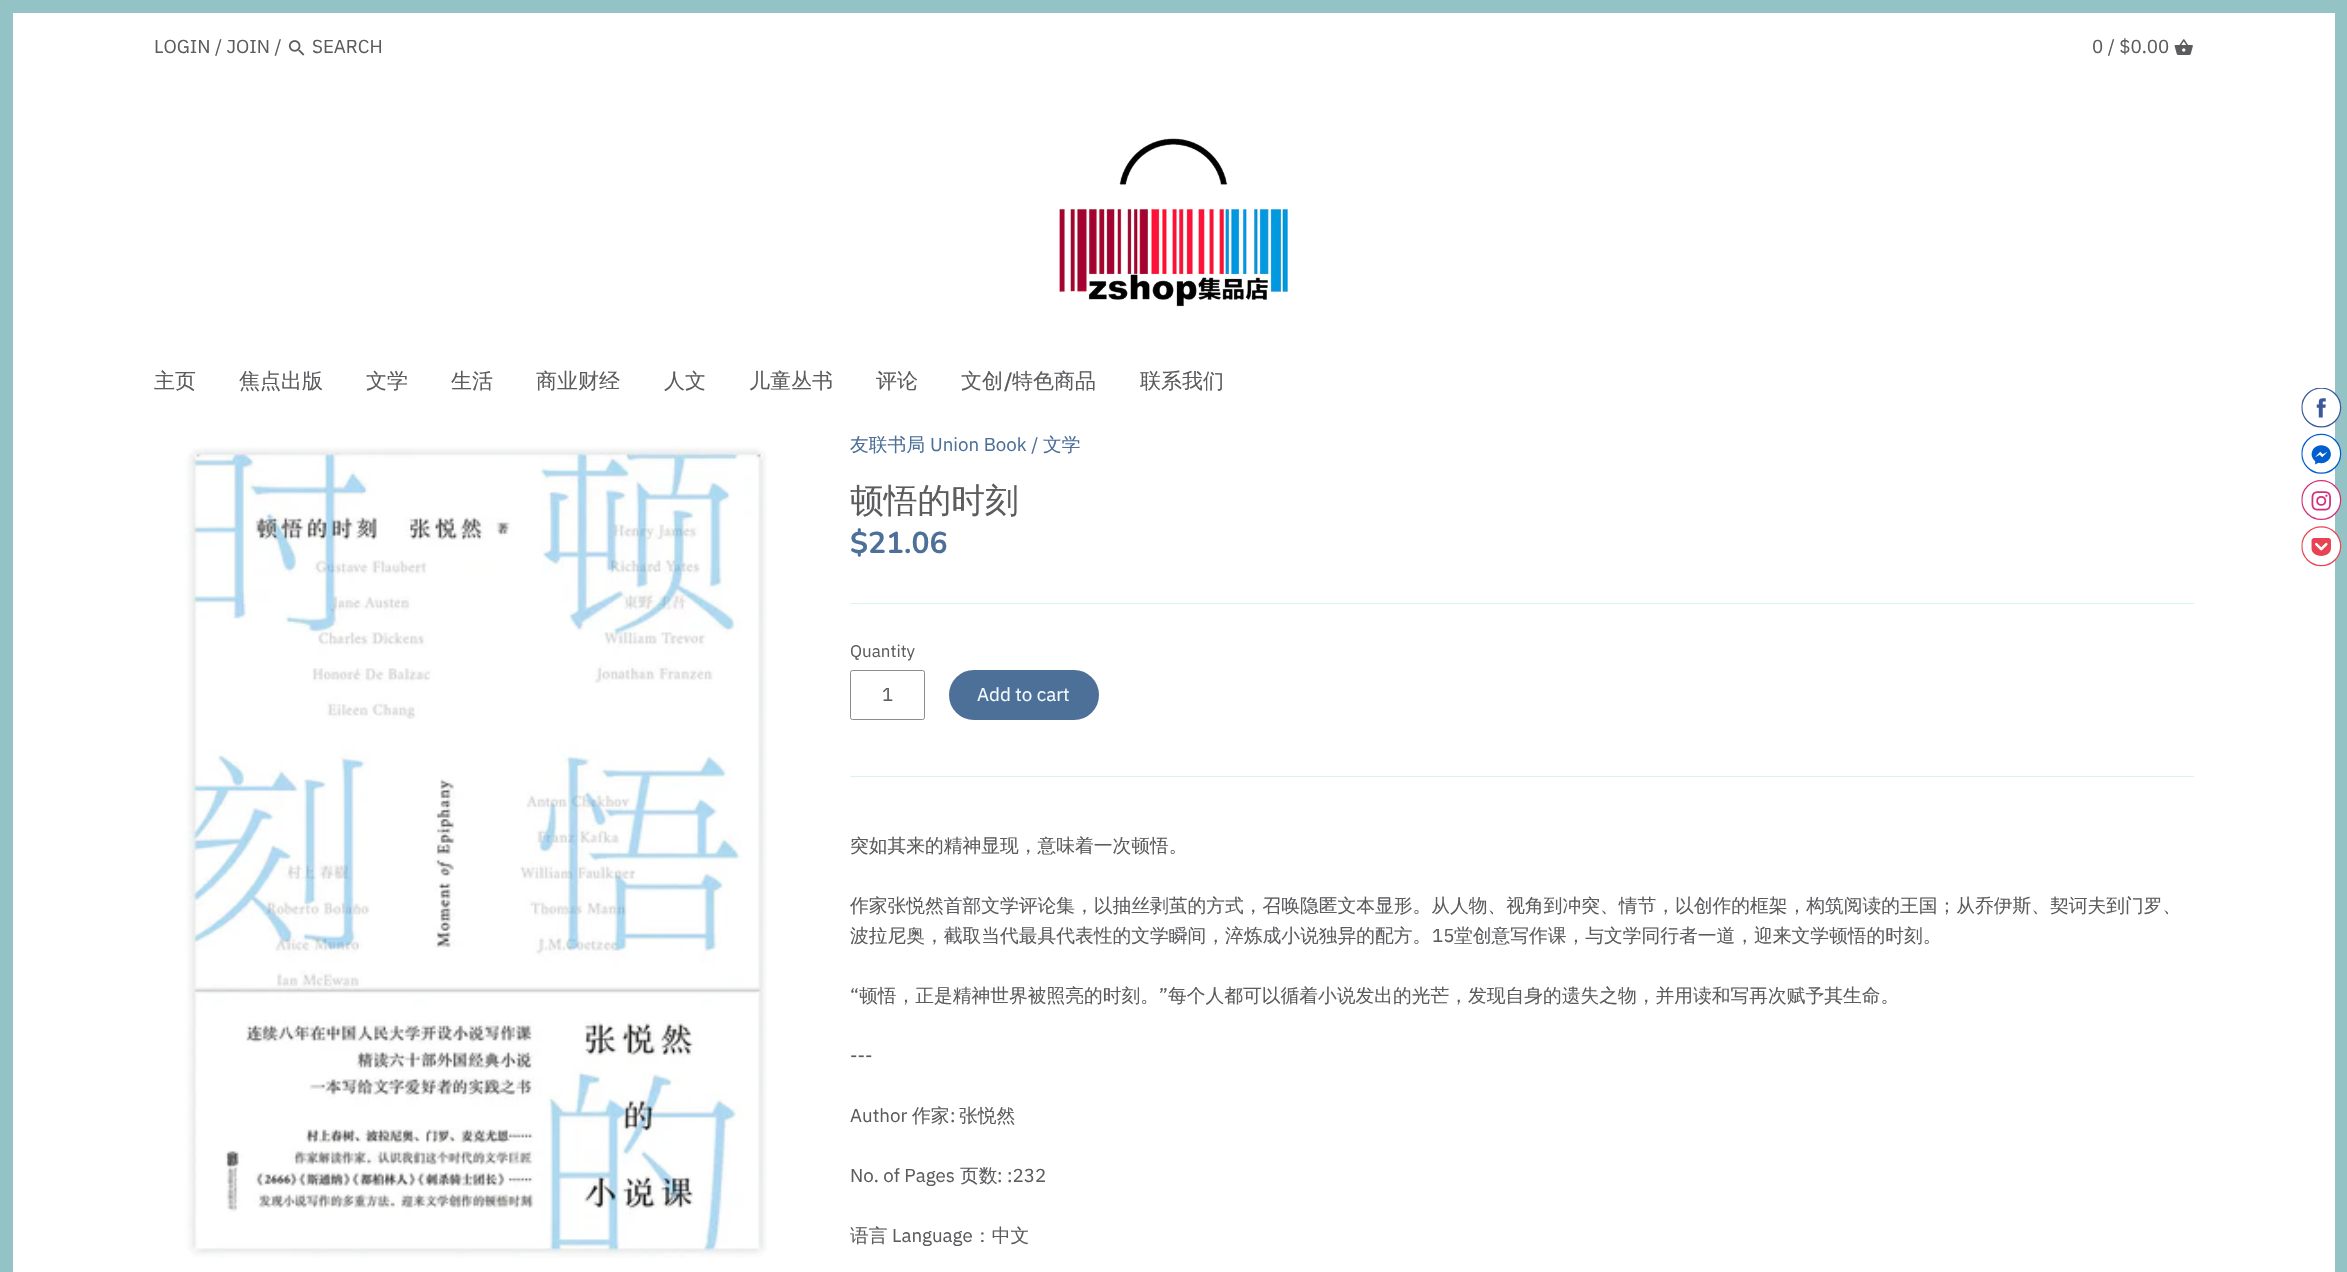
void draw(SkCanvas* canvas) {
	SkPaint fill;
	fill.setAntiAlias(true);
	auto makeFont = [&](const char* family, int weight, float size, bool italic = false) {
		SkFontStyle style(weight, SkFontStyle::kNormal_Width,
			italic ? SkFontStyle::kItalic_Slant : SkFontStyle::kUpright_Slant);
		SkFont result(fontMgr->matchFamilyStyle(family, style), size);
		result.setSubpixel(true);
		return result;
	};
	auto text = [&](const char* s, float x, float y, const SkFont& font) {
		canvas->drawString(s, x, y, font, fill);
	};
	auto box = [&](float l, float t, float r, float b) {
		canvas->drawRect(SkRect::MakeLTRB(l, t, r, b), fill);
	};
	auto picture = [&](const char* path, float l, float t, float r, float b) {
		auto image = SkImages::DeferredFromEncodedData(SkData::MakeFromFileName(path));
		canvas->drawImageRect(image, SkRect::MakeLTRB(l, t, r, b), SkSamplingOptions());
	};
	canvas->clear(0xFFFFFFFF);
	fill.setStyle(SkPaint::kStroke_Style);
	fill.setStrokeWidth(13);
	fill.setColor(0xFF93C3C4);
	canvas->drawRect(SkRect::MakeLTRB(6.5f, 6.5f, 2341.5f, 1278.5f), fill);
	picture("image0.png", 288, 40, 305, 56);
	picture("image1.png", 2174, 39, 2193, 55);
	picture("image2.png", 1059, 138, 1288, 307);
	picture("image3.png", 184, 446, 767, 1258);
	fill.setStyle(SkPaint::kFill_Style);
	fill.setColor(0xFFD8F4F5);
	box(850, 603, 2194, 604);
	box(850, 776, 2194, 777);
	fill.setStyle(SkPaint::kStroke_Style);
	fill.setStrokeWidth(1);
	fill.setColor(0xFF8C8C8F);
	canvas->drawRoundRect(SkRect::MakeLTRB(850.5f, 670.5f, 924.5f, 719.5f), 2, 2, fill);
	fill.setStyle(SkPaint::kFill_Style);
	fill.setColor(0xFF4D7099);
	canvas->drawRoundRect(SkRect::MakeLTRB(950.5f, 671.5f, 1097.5f, 718.5f), 23.5f, 23.5f, fill);
	fill.setStyle(SkPaint::kStroke_Style);
	fill.setStrokeWidth(3);
	canvas->drawRoundRect(SkRect::MakeLTRB(950.5f, 671.5f, 1097.5f, 718.5f), 23.5f, 23.5f, fill);
	picture("image4.png", 2301, 388, 2342, 567);
	auto font1 = makeFont("IBM Plex Sans", 400, 18.75f);
	fill.setStyle(SkPaint::kFill_Style);
	fill.setColor(0xFF5C5C5F);
	text("LOGIN / JOIN /", 154, 53, font1);
	text("SEARCH", 312, 53, font1);
	text("0 / $0.00", 2092, 53, font1);
	auto font2 = makeFont("WenQuanYi Zen Hei", 500, 21);
	text("主页", 154, 388, font2);
	text("焦点出版", 239, 388, font2);
	text("文学", 366, 388, font2);
	text("生活", 451, 388, font2);
	text("商业财经", 536, 388, font2);
	text("人文", 664, 388, font2);
	text("儿童丛书", 749, 388, font2);
	text("评论", 876, 388, font2);
	text("文创", 961, 388, font2);
	auto font3 = makeFont("IBM Plex Sans", 500, 21);
	text("/", 1004, 388, font3);
	text("特色商品", 1012, 388, font2);
	text("联系我们", 1140, 388, font2);
	auto font4 = makeFont("WenQuanYi Zen Hei", 500, 18.75f);
	fill.setColor(0xFF4D7099);
	text("友联书局", 850, 451, font4);
	text("Union Book /", 930, 451, font1);
	text("文学", 1043, 451, font4);
	auto font5 = makeFont("WenQuanYi Zen Hei", 500, 33.75f);
	fill.setColor(0xFF5C5C5F);
	text("顿悟的时刻", 850, 512, font5);
	auto font6 = makeFont("Nunito", 700, 30);
	fill.setColor(0xFF4D7099);
	text("$21.06", 850, 553, font6);
	auto font7 = makeFont("IBM Plex Sans", 400, 17);
	fill.setColor(0xFF5C5C5F);
	text("Quantity", 850, 657, font7);
	text("1", 882, 701, font1);
	fill.setColor(0xFFF4FBFC);
	text("Add to cart", 977, 701, font1);
	fill.setColor(0xFF5C5C5F);
	text("突如其来的精神显现，意味着一次顿悟。", 850, 852, font4);
	text("作家张悦然首部文学评论集，以抽丝剥茧的方式，召唤隐匿文本显形。从人物、视角到冲突、情节，以创作的框架，构筑阅读的王国；从乔伊斯、契诃夫到门罗、", 850, 912, font4);
	text("波拉尼奥，截取当代最具代表性的文学瞬间，淬炼成小说独异的配方。", 850, 942, font4);
	text("15", 1432, 942, font1);
	text("堂创意写作课，与文学同行者一道，迎来文学顿悟的时刻。", 1454, 942, font4);
	text("“", 850, 1002, font1);
	text("顿悟，正是精神世界被照亮的时刻。", 859, 1002, font4);
	text("”", 1159, 1002, font1);
	text("每个人都可以循着小说发出的光芒，发现自身的遗失之物，并用读和写再次赋予其生命。", 1168, 1002, font4);
	text("---", 850, 1062, font1);
	text("Author", 850, 1122, font1);
	text("作家", 912, 1122, font4);
	text(":", 950, 1122, font1);
	text("张悦然", 959, 1122, font4);
	text("No. of Pages", 850, 1182, font1);
	text("页数", 960, 1182, font4);
	text(": :232", 997, 1182, font1);
	text("语言", 850, 1242, font4);
	text("Language", 892, 1242, font1);
	text("：中文", 973, 1242, font4);
}
